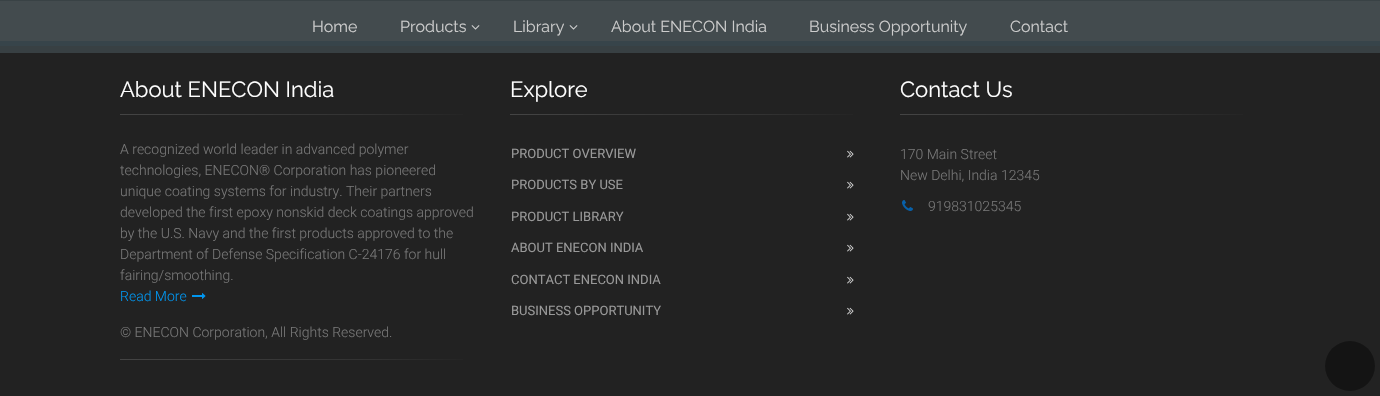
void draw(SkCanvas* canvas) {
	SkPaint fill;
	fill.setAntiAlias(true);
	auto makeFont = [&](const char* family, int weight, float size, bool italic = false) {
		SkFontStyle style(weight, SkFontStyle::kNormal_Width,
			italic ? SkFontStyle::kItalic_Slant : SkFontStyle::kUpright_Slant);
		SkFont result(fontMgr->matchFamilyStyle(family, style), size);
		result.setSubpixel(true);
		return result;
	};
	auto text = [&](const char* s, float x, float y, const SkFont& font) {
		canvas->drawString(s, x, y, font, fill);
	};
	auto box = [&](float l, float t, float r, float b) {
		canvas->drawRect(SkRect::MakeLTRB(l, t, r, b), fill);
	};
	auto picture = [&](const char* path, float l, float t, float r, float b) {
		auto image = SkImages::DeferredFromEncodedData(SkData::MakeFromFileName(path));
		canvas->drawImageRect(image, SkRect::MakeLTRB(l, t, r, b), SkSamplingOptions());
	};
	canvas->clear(0xFF434B4E);
	fill.setColor(0xFF394245);
	box(0, 0, 1380, 1);
	picture("image0.png", 471, 25, 480, 30);
	picture("image0.png", 569, 25, 578, 30);
	fill.setColor(0xFF37444A);
	box(0, 41, 1380, 46);
	fill.setColor(0xFF222222);
	box(0, 53, 1380, 396);
	fill.setColor(0xFF384043);
	box(0, 46, 1380, 53);
	{
		const SkColor colors[] = {0xFF444444, 0xFF393939, 0xFF323232, 0xFF222222};
		const float stops[] = {0, 0.35f, 0.7f, 1};
		const SkPoint ends[] = {{120, 115}, {480, 114}};
		fill.setShader(SkGradientShader::MakeLinear(ends, colors, stops, 4, SkTileMode::kClamp));
		fill.setAlpha(255);
	}
	box(120, 114, 463, 115);
	picture("image1.png", 192, 293, 206, 299);
	{
		const SkColor colors[] = {0xFF444444, 0xFF393939, 0xFF323232, 0xFF222222};
		const float stops[] = {0, 0.35f, 0.7f, 1};
		const SkPoint ends[] = {{120, 360}, {480, 360}};
		fill.setShader(SkGradientShader::MakeLinear(ends, colors, stops, 4, SkTileMode::kClamp));
		fill.setAlpha(255);
	}
	box(120, 359, 463, 360);
	{
		const SkColor colors[] = {0xFF444444, 0xFF393939, 0xFF323232, 0xFF222222};
		const float stops[] = {0, 0.35f, 0.7f, 1};
		const SkPoint ends[] = {{510, 115}, {870, 114}};
		fill.setShader(SkGradientShader::MakeLinear(ends, colors, stops, 4, SkTileMode::kClamp));
		fill.setAlpha(255);
	}
	box(510, 114, 853, 115);
	picture("image2.png", 847, 150, 854, 158);
	picture("image2.png", 847, 181, 854, 189);
	picture("image2.png", 847, 213, 854, 221);
	picture("image2.png", 847, 244, 854, 252);
	picture("image2.png", 847, 276, 854, 284);
	picture("image2.png", 847, 307, 854, 315);
	{
		const SkColor colors[] = {0xFF444444, 0xFF393939, 0xFF323232, 0xFF222222};
		const float stops[] = {0, 0.35f, 0.7f, 1};
		const SkPoint ends[] = {{900, 115}, {1260, 114}};
		fill.setShader(SkGradientShader::MakeLinear(ends, colors, stops, 4, SkTileMode::kClamp));
		fill.setAlpha(255);
	}
	box(900, 114, 1243, 115);
	picture("image3.png", 902, 200, 913, 211);
	fill.setShader(nullptr);
	fill.setColor(0xFF141414);
	canvas->drawCircle(1350, 366, 25, fill);
	auto font1 = makeFont("Raleway", 400, 16);
	fill.setColor(0xFFCCCCCC);
	text("Home", 312, 32, font1);
	text("Products", 400, 32, font1);
	text("Library", 513, 32, font1);
	text("About ENECON India", 611, 32, font1);
	text("Business Opportunity", 809, 32, font1);
	text("Contact", 1010, 32, font1);
	auto font2 = makeFont("Raleway", 400, 22);
	fill.setColor(0xFFFFFFFF);
	text("About ENECON India", 120, 97, font2);
	auto font3 = makeFont("Roboto", 300, 14);
	fill.setColor(0xFF777777);
	text("A recognized world leader in advanced polymer", 120, 154, font3);
	text("technologies, ENECON® Corporation has pioneered", 120, 175, font3);
	text("unique coating systems for industry. Their partners", 120, 196, font3);
	text("developed the first epoxy nonskid deck coatings approved", 120, 217, font3);
	text("by the U.S. Navy and the first products approved to the", 120, 238, font3);
	text("Department of Defense Specification C-24176 for hull", 120, 259, font3);
	text("fairing/smoothing.", 120, 280, font3);
	fill.setColor(0xFF0096F0);
	text("Read More", 120, 301, font3);
	fill.setColor(0xFF777777);
	text("© ENECON Corporation, All Rights Reserved.", 120, 337, font3);
	fill.setColor(0xFFFFFFFF);
	text("Explore", 510, 97, font2);
	auto font4 = makeFont("Roboto", 400, 13);
	fill.setColor(0xFF999999);
	text("PRODUCT OVERVIEW", 511, 158, font4);
	text("PRODUCTS BY USE", 511, 189, font4);
	text("PRODUCT LIBRARY", 511, 221, font4);
	text("ABOUT ENECON INDIA", 511, 252, font4);
	text("CONTACT ENECON INDIA", 511, 284, font4);
	text("BUSINESS OPPORTUNITY", 511, 315, font4);
	fill.setColor(0xFFFFFFFF);
	text("Contact Us", 900, 97, font2);
	fill.setColor(0xFF777777);
	text("170 Main Street", 900, 159, font3);
	text("New Delhi, India 12345", 900, 180, font3);
	text("919831025345", 928, 211, font3);
}
